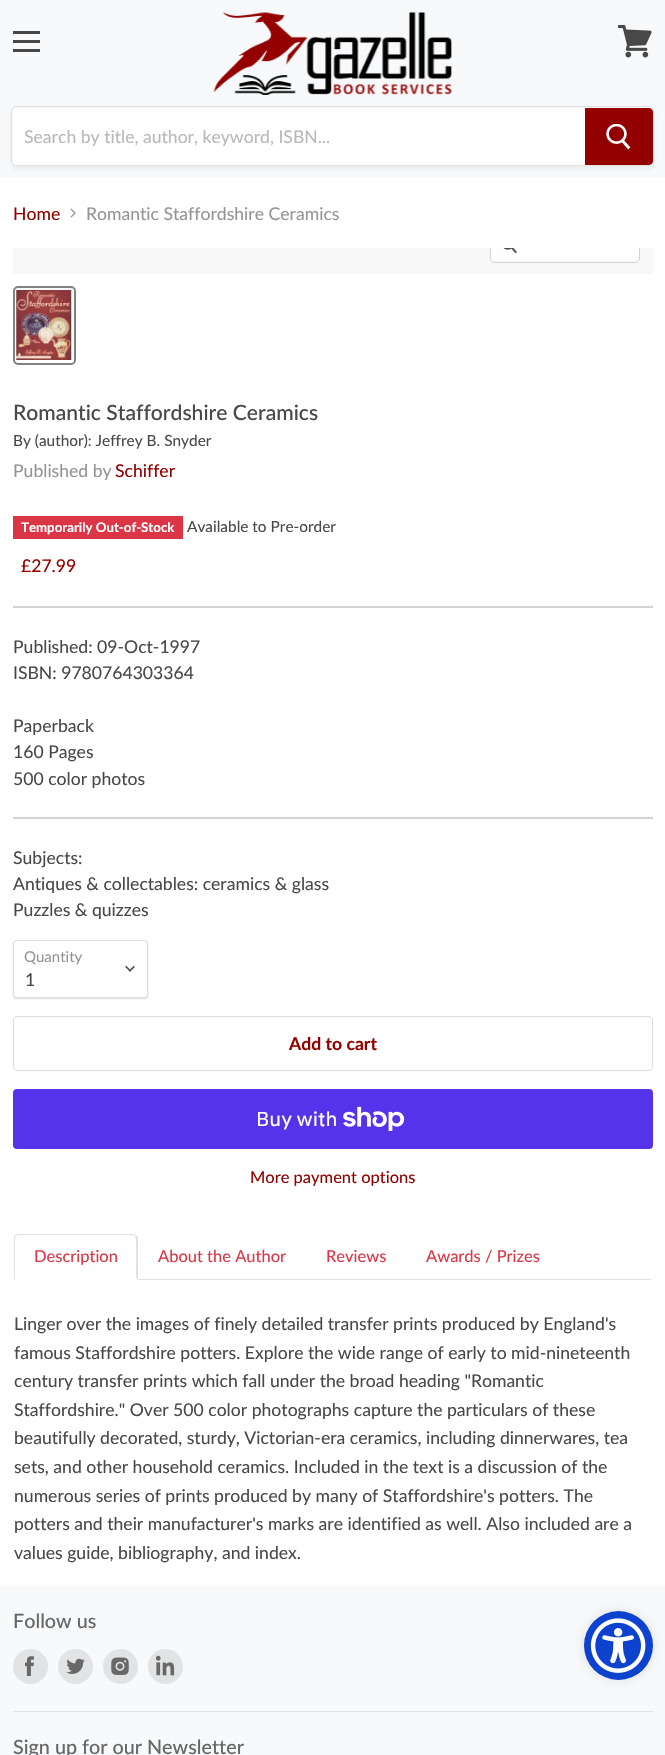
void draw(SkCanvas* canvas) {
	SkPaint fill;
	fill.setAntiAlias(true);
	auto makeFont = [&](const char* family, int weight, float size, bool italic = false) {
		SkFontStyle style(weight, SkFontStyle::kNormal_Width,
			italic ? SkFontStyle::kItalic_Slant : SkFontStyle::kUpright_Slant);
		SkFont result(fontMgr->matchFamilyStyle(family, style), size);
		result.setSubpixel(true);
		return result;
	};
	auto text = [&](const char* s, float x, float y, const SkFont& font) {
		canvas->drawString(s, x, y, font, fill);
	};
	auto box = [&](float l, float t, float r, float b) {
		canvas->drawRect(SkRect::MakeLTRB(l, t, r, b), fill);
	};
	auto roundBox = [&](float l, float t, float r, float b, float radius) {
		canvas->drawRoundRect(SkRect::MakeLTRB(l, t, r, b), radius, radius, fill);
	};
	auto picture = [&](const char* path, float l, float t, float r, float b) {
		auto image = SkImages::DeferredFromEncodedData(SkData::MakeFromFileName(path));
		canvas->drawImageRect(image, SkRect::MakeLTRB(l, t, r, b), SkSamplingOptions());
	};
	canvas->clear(0xFFFFFFFF);
	fill.setColor(0xFFF8F9FA);
	box(0, 0, 665, 178);
	fill.setColor(0xFF484848);
	box(13, 31, 40, 34);
	box(13, 40, 40, 43);
	box(13, 49, 40, 52);
	picture("image0.png", 618, 25, 652, 58);
	picture("image1.png", 213, 12, 452, 95);
	canvas->save();
	canvas->clipPath(SkPathBuilder(SkPathFillType::kEvenOdd).moveTo(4, 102).lineTo(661, 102).lineTo(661, 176).lineTo(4, 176).close().moveTo(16, 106).lineTo(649, 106).cubicTo(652, 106, 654, 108, 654, 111).lineTo(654, 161).cubicTo(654, 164, 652, 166, 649, 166).lineTo(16, 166).cubicTo(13, 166, 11, 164, 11, 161).lineTo(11, 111).cubicTo(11, 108, 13, 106, 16, 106).close().detach(), true);
	fill.setColor(0x1C808080);
	fill.setMaskFilter(SkMaskFilter::MakeBlur(kNormal_SkBlurStyle, 2));
	canvas->drawRoundRect(SkRect::MakeLTRB(11, 109, 654, 169), 5, 5, fill);
	fill.setMaskFilter(nullptr);
	canvas->restore();
	fill.setStyle(SkPaint::kStroke_Style);
	fill.setStrokeWidth(1);
	fill.setColor(0x33808080);
	canvas->drawRoundRect(SkRect::MakeLTRB(11.5f, 106.5f, 653.5f, 165.5f), 4.5f, 4.5f, fill);
	fill.setStyle(SkPaint::kFill_Style);
	fill.setColor(0xFFFFFFFF);
	canvas->drawPath(SkPathBuilder().moveTo(17, 108).lineTo(585, 108).lineTo(585, 165).lineTo(17, 165).cubicTo(15, 165, 13, 163, 13, 161).lineTo(13, 112).cubicTo(13, 110, 15, 108, 17, 108).close().detach(), fill);
	fill.setColor(0xFF930000);
	canvas->drawPath(SkPathBuilder().moveTo(585.5f, 108.5f).lineTo(649, 108.5f).cubicTo(651, 108.5f, 652.5f, 110, 652.5f, 112).lineTo(652.5f, 161).cubicTo(652.5f, 163, 651, 164.5f, 649, 164.5f).lineTo(585.5f, 164.5f).close().detach(), fill);
	fill.setStyle(SkPaint::kStroke_Style);
	canvas->drawPath(SkPathBuilder().moveTo(585.5f, 108.5f).lineTo(649, 108.5f).cubicTo(651, 108.5f, 652.5f, 110, 652.5f, 112).lineTo(652.5f, 161).cubicTo(652.5f, 163, 651, 164.5f, 649, 164.5f).lineTo(585.5f, 164.5f).close().detach(), fill);
	picture("image2.png", 606, 124, 631, 150);
	picture("image3.png", 70, 208, 76, 218);
	fill.setStyle(SkPaint::kFill_Style);
	fill.setColor(0xFFF8F8F8);
	box(13, 248, 653, 274);
	canvas->save();
	canvas->clipRect(SkRect::MakeLTRB(13, 248, 653, 274));
	fill.setStyle(SkPaint::kStroke_Style);
	fill.setColor(0xFFD3D3D3);
	canvas->drawRoundRect(SkRect::MakeLTRB(490.5f, 229.5f, 639.5f, 262.5f), 4.5f, 4.5f, fill);
	canvas->restore();
	fill.setStyle(SkPaint::kFill_Style);
	fill.setColor(0xFFFEFEFE);
	canvas->drawPath(SkPathBuilder().moveTo(491, 248).lineTo(639, 248).lineTo(639, 257).cubicTo(639, 259, 637, 261, 635, 261).lineTo(495, 261).cubicTo(493, 261, 491, 259, 491, 257).close().detach(), fill);
	picture("image4.png", 503, 248, 517, 254);
	fill.setStyle(SkPaint::kStroke_Style);
	fill.setStrokeWidth(2);
	fill.setColor(0xFF818181);
	canvas->drawRoundRect(SkRect::MakeLTRB(14, 287, 75, 364), 4, 4, fill);
	picture("image5.png", 16, 290, 72, 360);
	fill.setStyle(SkPaint::kFill_Style);
	fill.setColor(0xFFDC3545);
	box(13, 516, 183, 539);
	fill.setColor(0xFFD3D3D3);
	box(13, 606, 653, 608);
	fill.setColor(0xFFFBFBFB);
	box(13, 605, 653, 606);
	fill.setColor(0xFFD3D3D3);
	box(13, 817, 653, 819);
	fill.setColor(0xFFFBFBFB);
	box(13, 816, 653, 817);
	fill.setColor(0x26000000);
	fill.setMaskFilter(SkMaskFilter::MakeBlur(kNormal_SkBlurStyle, 1));
	canvas->drawRoundRect(SkRect::MakeLTRB(13, 941, 148, 999), 4, 4, fill);
	fill.setMaskFilter(nullptr);
	fill.setColor(0xFFFFFFFF);
	canvas->drawRoundRect(SkRect::MakeLTRB(13.5f, 940.5f, 147.5f, 997.5f), 3.5f, 3.5f, fill);
	fill.setStyle(SkPaint::kStroke_Style);
	fill.setStrokeWidth(1);
	fill.setColor(0xFFDDDDDD);
	canvas->drawRoundRect(SkRect::MakeLTRB(13.5f, 940.5f, 147.5f, 997.5f), 3.5f, 3.5f, fill);
	picture("image6.png", 125, 965, 135, 972);
	canvas->drawRoundRect(SkRect::MakeLTRB(13.5f, 1016.5f, 652.5f, 1070.5f), 3.5f, 3.5f, fill);
	fill.setStyle(SkPaint::kFill_Style);
	fill.setColor(0xFF5433EB);
	roundBox(13, 1089, 653, 1149, 4);
	picture("image7.png", 343, 1106, 405, 1131);
	fill.setColor(0xFFDEE2E6);
	box(138, 1279, 651, 1280);
	canvas->drawPath(SkPathBuilder().moveTo(18, 1234).lineTo(15, 1235).lineTo(16, 1236).lineTo(18, 1235).lineTo(133, 1235).lineTo(135, 1236).lineTo(136, 1235).lineTo(133, 1234).close().detach(), fill);
	canvas->drawPath(SkPathBuilder().moveTo(138, 1237).lineTo(138, 1280).lineTo(136, 1278).cubicTo(136, 1273, 137, 1238, 135, 1236).lineTo(136, 1235).close().detach(), fill);
	fill.setColor(0xFFFFFFFF);
	canvas->drawPath(SkPathBuilder().moveTo(138, 1280).lineTo(136, 1278).lineTo(136, 1279).lineTo(15, 1279).lineTo(14, 1280).close().detach(), fill);
	fill.setColor(0xFFDEE2E6);
	canvas->drawPath(SkPathBuilder().moveTo(15, 1235).cubicTo(14, 1236, 14, 1237, 14, 1238).lineTo(14, 1280).lineTo(15, 1279).lineTo(15, 1238).lineTo(16, 1236).close().detach(), fill);
	fill.setColor(0xFFF8F9FA);
	box(0, 1586, 665, 1755);
	fill.setColor(0xFFE2E3E4);
	box(13, 1711, 653, 1712);
	canvas->drawCircle(30.5f, 1666.5f, 17.5f, fill);
	picture("image8.png", 25, 1656, 34, 1676);
	canvas->drawCircle(75.5f, 1666.5f, 17.5f, fill);
	picture("image9.png", 66, 1658, 85, 1674);
	canvas->drawCircle(120.5f, 1666.5f, 17.5f, fill);
	picture("image10.png", 111, 1657, 129, 1675);
	canvas->drawCircle(165.5f, 1666.5f, 17.5f, fill);
	picture("image11.png", 155, 1655, 175, 1676);
	fill.setColor(0x1A000000);
	fill.setMaskFilter(SkMaskFilter::MakeBlur(kNormal_SkBlurStyle, 6));
	canvas->drawRoundRect(SkRect::MakeLTRB(584, 1611, 653, 1680), 34.5f, 34.5f, fill);
	fill.setMaskFilter(nullptr);
	fill.setColor(0xFF0C42CE);
	canvas->drawCircle(618.5f, 1645.5f, 34.5f, fill);
	picture("image12.png", 590, 1618, 646, 1673);
	auto font1 = makeFont("Lato", 400, 17.6f);
	fill.setColor(0xFFB8B8B8);
	text("Search by title, author, keyword, ISBN...", 24, 143, font1);
	fill.setColor(0xFF930000);
	text("Home", 13, 220, font1);
	fill.setColor(0xFF949494);
	text("Romantic Staffordshire Ceramics", 86, 220, font1);
	auto font2 = makeFont("Lato", 500, 21.1f);
	fill.setColor(0xFF484848);
	text("Romantic Staffordshire Ceramics", 13, 420, font2);
	auto font3 = makeFont("Lato", 400, 15.4f);
	text("By (author): Jeffrey B. Snyder", 13, 446, font3);
	fill.setColor(0xFF949494);
	text("Published by", 13, 477, font1);
	fill.setColor(0xFF930000);
	text("Schiffer", 115, 477, font1);
	auto font4 = makeFont("Lato", 700, 13.25f);
	fill.setColor(0xFFFFFFFF);
	text("Temporarily Out-of-Stock", 21, 532, font4);
	fill.setColor(0xFF484848);
	text("Available to Pre-order", 187, 532, font3);
	fill.setColor(0xFF930000);
	text("£27.99", 21, 572, font1);
	fill.setColor(0xFF484848);
	text("Published: 09-Oct-1997", 13, 653, font1);
	text("ISBN: 9780764303364", 13, 679, font1);
	text("Paperback", 13, 732, font1);
	text("160 Pages", 13, 758, font1);
	text("500 color photos", 13, 785, font1);
	text("Subjects:", 13, 864, font1);
	text("Antiques & collectables: ceramics & glass", 13, 890, font1);
	text("Puzzles & quizzes", 13, 916, font1);
	auto font5 = makeFont("Lato", 400, 15);
	fill.setColor(0xFF949494);
	text("Quantity", 24, 962, font5);
	fill.setColor(0xFF484848);
	text("1", 25, 986, font1);
	auto font6 = makeFont("Lato", 700, 17.6f);
	fill.setColor(0xFF930000);
	text("Add to cart", 289, 1050, font6);
	auto font7 = makeFont("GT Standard", 400, 20);
	fill.setColor(0xFFFFFFFF);
	text("Buy with", 256, 1126, font7);
	auto font8 = makeFont("Lato", 400, 16.5f);
	fill.setColor(0xFF930000);
	text("More payment options", 250, 1183, font8);
	fill.setColor(0xFFDC3545);
	text("Description", 34, 1262, font8);
	text("About the Author", 158, 1262, font8);
	text("Reviews", 326, 1262, font8);
	text("Awards / Prizes", 426, 1262, font8);
	fill.setColor(0xFF484848);
	text("Linger over the images of finely detailed transfer prints produced by England's", 14, 1330, font1);
	text("famous Staffordshire potters. Explore the wide range of early to mid-nineteenth", 14, 1359, font1);
	text("century transfer prints which fall under the broad heading \"Romantic", 14, 1387, font1);
	text("Staffordshire.\" Over 500 color photographs capture the particulars of these", 14, 1416, font1);
	text("beautifully decorated, sturdy, Victorian-era ceramics, including dinnerwares, tea", 14, 1444, font1);
	text("sets, and other household ceramics. Included in the text is a discussion of the", 14, 1473, font1);
	text("numerous series of prints produced by many of Staffordshire's potters. The", 14, 1502, font1);
	text("potters and their manufacturer's marks are identified as well. Also included are a", 14, 1530, font1);
	text("values guide, bibliography, and index.", 14, 1559, font1);
	auto font9 = makeFont("Lato", 500, 19.75f);
	fill.setColor(0xFF686868);
	text("Follow us", 13, 1628, font9);
	text("Sign up for our Newsletter", 13, 1754, font9);
}
